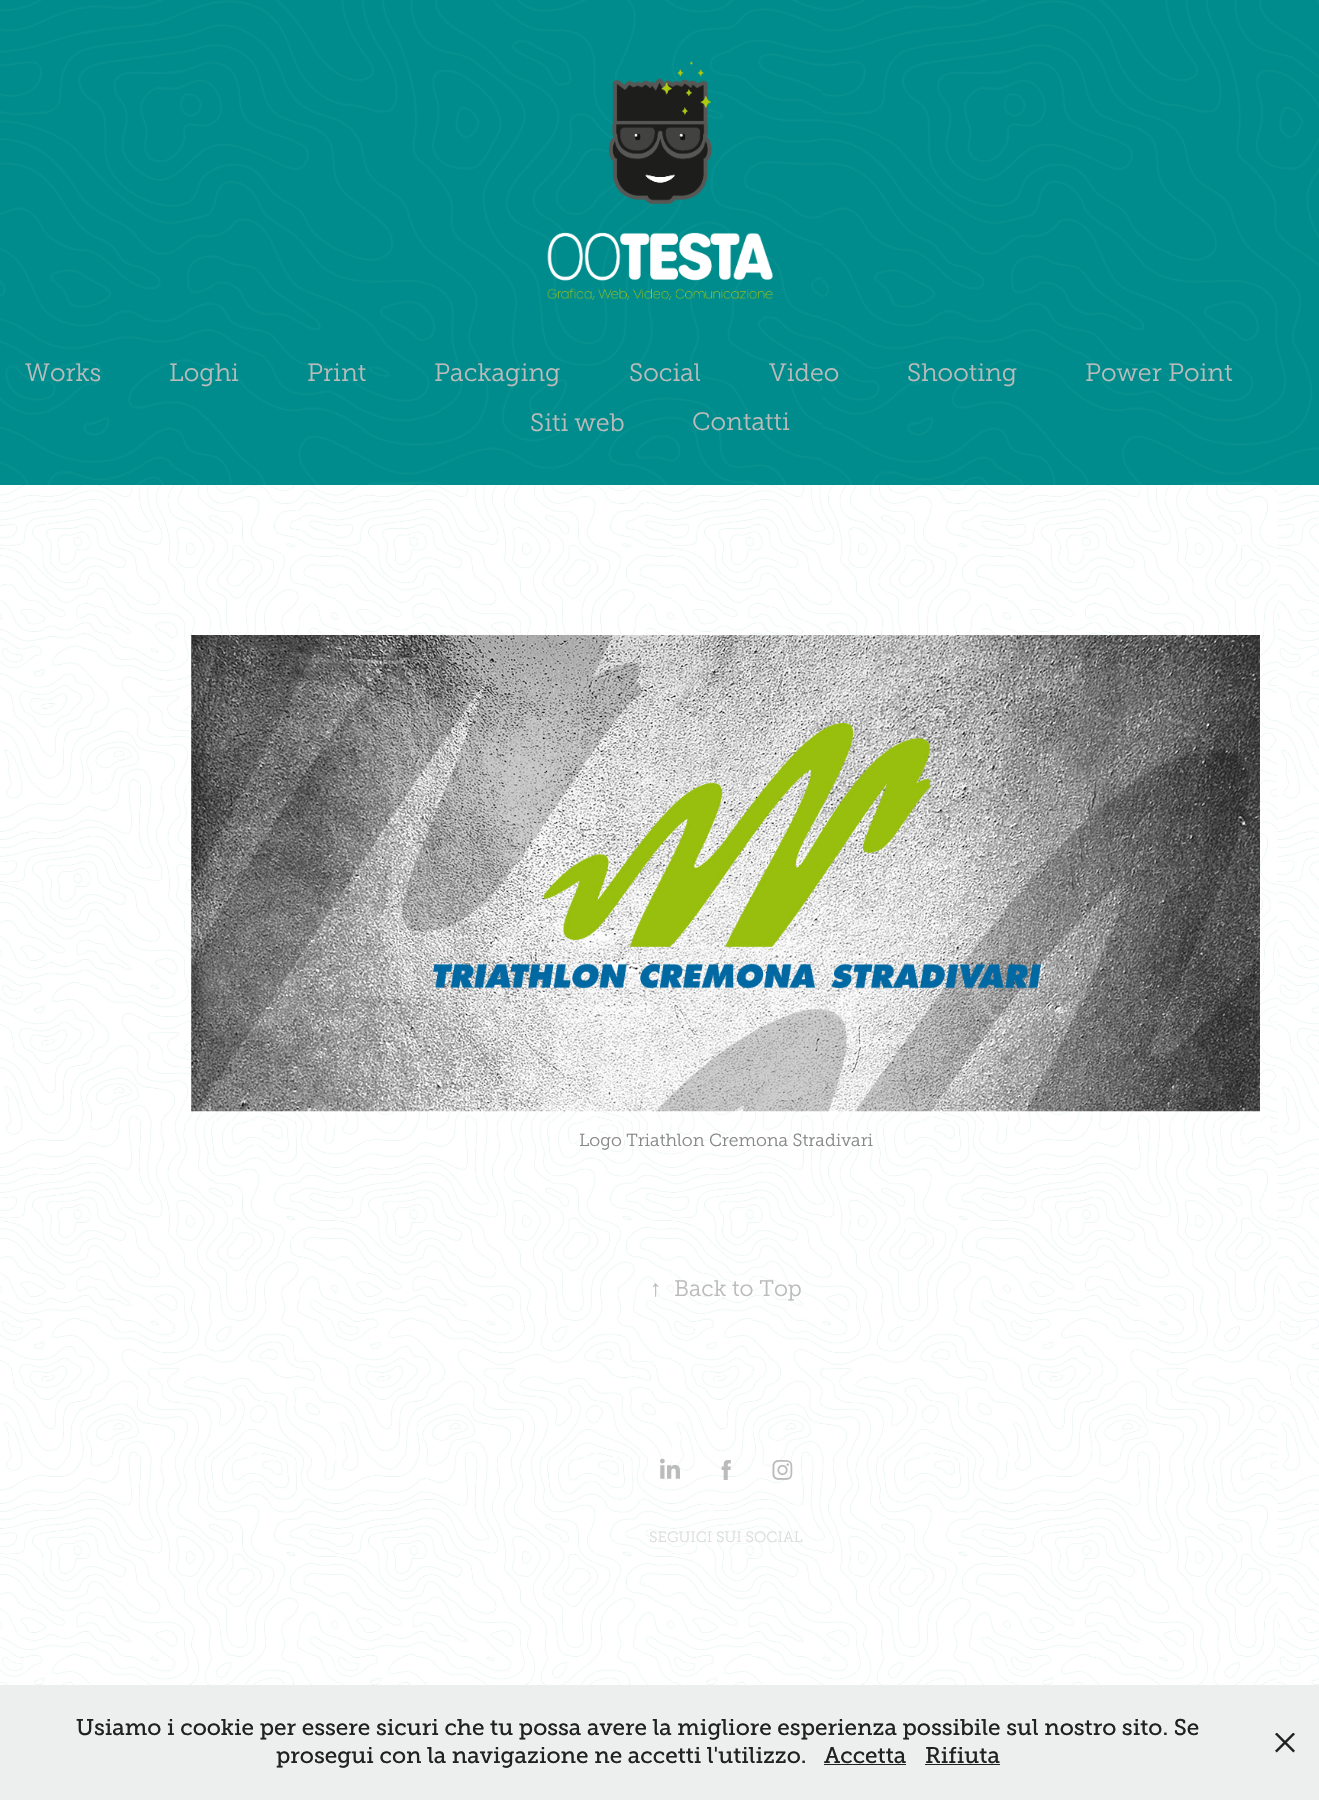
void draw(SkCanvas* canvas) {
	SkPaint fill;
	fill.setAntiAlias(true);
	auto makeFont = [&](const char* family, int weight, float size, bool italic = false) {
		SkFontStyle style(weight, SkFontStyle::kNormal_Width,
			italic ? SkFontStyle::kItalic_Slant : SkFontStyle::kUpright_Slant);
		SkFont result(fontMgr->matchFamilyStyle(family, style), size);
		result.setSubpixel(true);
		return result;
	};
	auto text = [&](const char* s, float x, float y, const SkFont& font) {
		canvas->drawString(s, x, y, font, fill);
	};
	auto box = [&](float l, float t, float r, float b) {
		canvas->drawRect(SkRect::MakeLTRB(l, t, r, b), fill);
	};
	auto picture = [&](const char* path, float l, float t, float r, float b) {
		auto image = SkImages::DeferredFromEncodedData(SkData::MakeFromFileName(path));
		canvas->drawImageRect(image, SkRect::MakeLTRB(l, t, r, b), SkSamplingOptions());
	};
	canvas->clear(0xFFFFFFFF);
	picture("image0.png", 0, 485, 1319, 1685);
	fill.setColor(0xFF008C8C);
	box(0, 0, 1319, 485);
	picture("image1.png", 0, 0, 1319, 485);
	picture("image2.png", 547, 61, 773, 300);
	picture("image3.png", 191, 635, 1260, 1112);
	picture("image4.png", 660, 1458, 680, 1479);
	picture("image5.png", 721, 1460, 731, 1480);
	picture("image6.png", 772, 1460, 793, 1480);
	fill.setColor(0xFFEDEEEE);
	box(0, 1685, 1319, 1800);
	fill.setColor(0xFF212121);
	box(824, 1764, 906, 1765);
	box(925, 1764, 1000, 1765);
	picture("image7.png", 1275, 1733, 1295, 1753);
	auto font1 = makeFont("Museo Slab", 300, 25);
	fill.setColor(0xFFBBBBBB);
	text("Works", 25, 381, font1);
	text("Loghi", 169, 381, font1);
	text("Print", 307, 381, font1);
	text("Packaging", 434, 381, font1);
	text("Social", 629, 381, font1);
	text("Video", 769, 381, font1);
	text("Shooting", 907, 381, font1);
	text("Power Point", 1085, 381, font1);
	text("Siti web", 530, 431, font1);
	text("Contatti", 692, 430, font1);
	auto font2 = makeFont("Museo Slab", 300, 17.5f);
	fill.setColor(0xFF888888);
	text("Logo Triathlon Cremona Stradivari", 579, 1146, font2);
	auto font3 = makeFont("Liberation Serif", 400, 22.5f);
	fill.setColor(0xFFBBBBBB);
	text("↑", 650, 1296, font3);
	auto font4 = makeFont("Museo Slab", 300, 22.5f);
	text("Back to Top", 674, 1296, font4);
	auto font5 = makeFont("Museo Slab", 300, 15);
	fill.setColor(0xFFDDDDDD);
	text("SEGUICI SUI SOCIAL", 649, 1542, font5);
	auto font6 = makeFont("Museo Slab", 400, 22.5f);
	fill.setColor(0xFF212121);
	text("Usiamo i cookie per essere sicuri che tu possa avere la migliore esperienza possibile sul nostro sito. Se", 76, 1735, font6);
	text("prosegui con la navigazione ne accetti l'utilizzo.", 276, 1763, font6);
	text("Accetta", 824, 1763, font6);
	text("Rifiuta", 925, 1763, font6);
}
